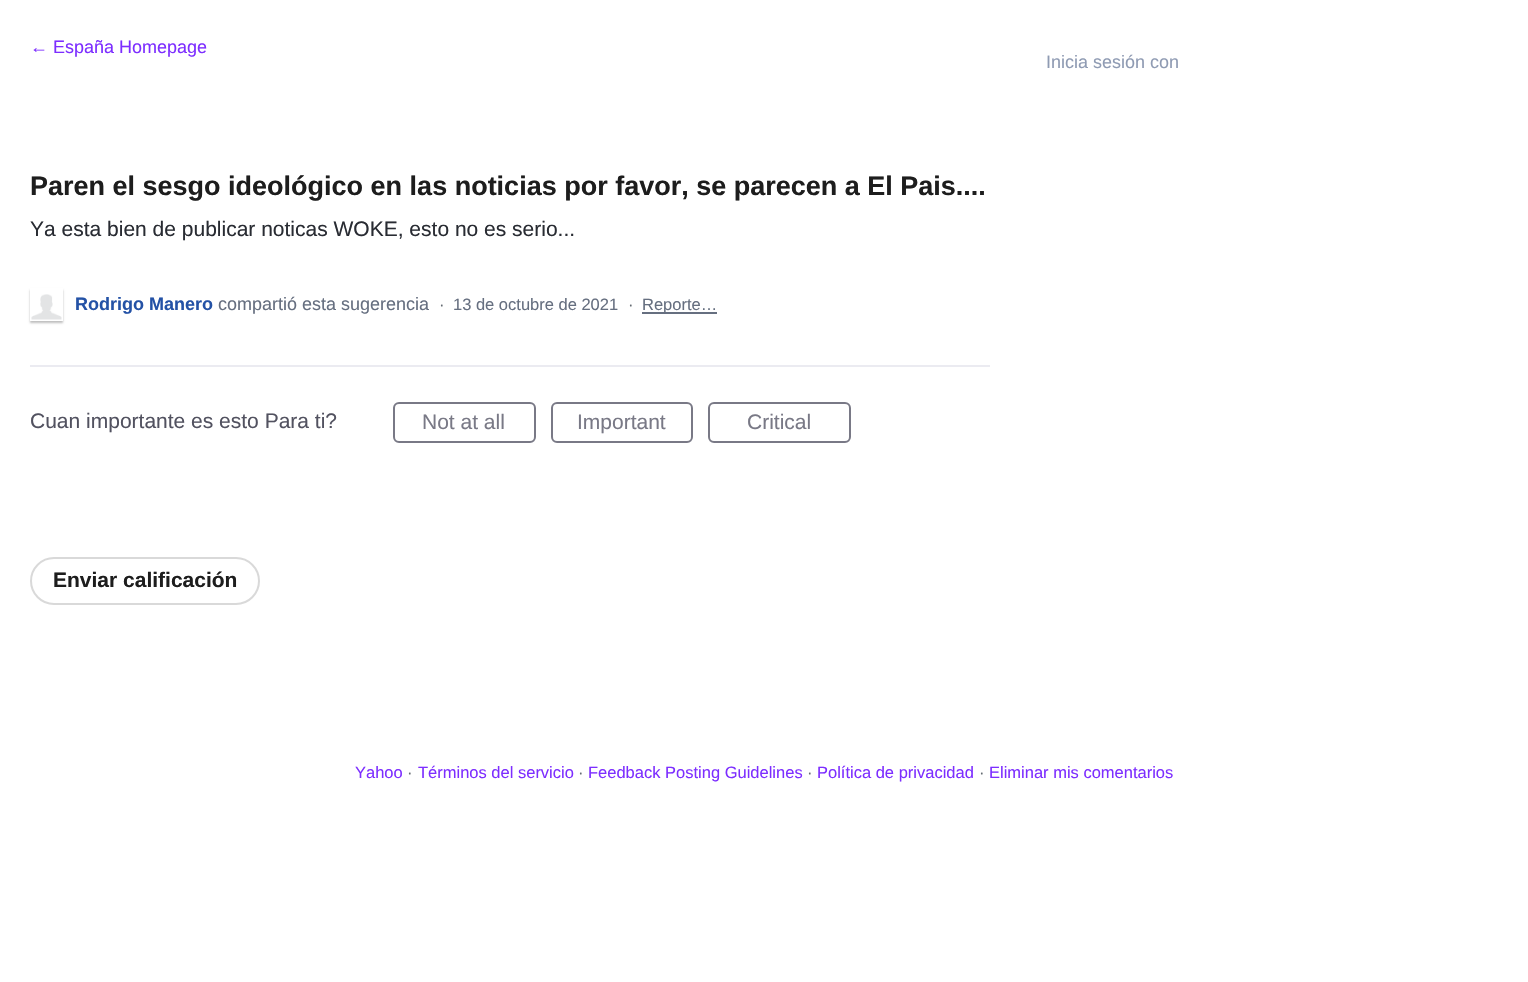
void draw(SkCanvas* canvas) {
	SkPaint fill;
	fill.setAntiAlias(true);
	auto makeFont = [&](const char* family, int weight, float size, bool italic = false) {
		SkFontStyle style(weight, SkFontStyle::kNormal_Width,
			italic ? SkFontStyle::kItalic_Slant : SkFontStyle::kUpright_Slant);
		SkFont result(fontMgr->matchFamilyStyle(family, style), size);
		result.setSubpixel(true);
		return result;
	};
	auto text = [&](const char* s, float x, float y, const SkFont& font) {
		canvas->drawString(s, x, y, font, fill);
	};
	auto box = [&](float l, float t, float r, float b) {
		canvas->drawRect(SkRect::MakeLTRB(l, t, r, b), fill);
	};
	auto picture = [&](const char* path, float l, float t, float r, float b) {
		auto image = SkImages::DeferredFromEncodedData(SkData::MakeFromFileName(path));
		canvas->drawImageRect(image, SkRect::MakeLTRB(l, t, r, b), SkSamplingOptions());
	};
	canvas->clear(0xFFFFFFFF);
	canvas->save();
	canvas->clipPath(SkPathBuilder(SkPathFillType::kEvenOdd).moveTo(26, 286).lineTo(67, 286).lineTo(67, 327).lineTo(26, 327).close().moveTo(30, 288).lineTo(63, 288).lineTo(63, 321).lineTo(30, 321).close().detach(), true);
	fill.setColor(0x40000000);
	fill.setMaskFilter(SkMaskFilter::MakeBlur(kNormal_SkBlurStyle, 1));
	canvas->drawRect(SkRect::MakeLTRB(30, 290, 63, 323), fill);
	fill.setMaskFilter(nullptr);
	canvas->restore();
	picture("image0.png", 31, 294, 62, 320);
	fill.setColor(0xFF666F80);
	box(642, 312, 717, 314);
	fill.setColor(0xFFEBEBF1);
	box(30, 365, 990, 367);
	fill.setStyle(SkPaint::kStroke_Style);
	fill.setStrokeWidth(2);
	fill.setColor(0xFF797986);
	canvas->drawRoundRect(SkRect::MakeLTRB(394, 403, 535, 442), 5, 5, fill);
	canvas->drawRoundRect(SkRect::MakeLTRB(552, 403, 692, 442), 5, 5, fill);
	canvas->drawRoundRect(SkRect::MakeLTRB(709, 403, 850, 442), 5, 5, fill);
	fill.setColor(0xFFD9D9D9);
	canvas->drawRoundRect(SkRect::MakeLTRB(31, 558, 259, 604), 23, 23, fill);
	auto font1 = makeFont("Liberation Sans", 400, 18);
	fill.setStyle(SkPaint::kFill_Style);
	fill.setColor(0xFF7D2EFF);
	text("← España Homepage", 30, 53, font1);
	auto font2 = makeFont("Liberation Sans", 700, 27);
	fill.setColor(0xFF1D1D1D);
	text("Paren el sesgo ideológico en las noticias por favor, se parecen a El Pais....", 30, 195, font2);
	auto font3 = makeFont("Liberation Sans", 400, 21);
	fill.setColor(0xFF292C33);
	text("Ya esta bien de publicar noticas WOKE, esto no es serio...", 30, 236, font3);
	auto font4 = makeFont("Liberation Sans", 700, 18);
	fill.setColor(0xFF2452A6);
	text("Rodrigo Manero", 75, 310, font4);
	fill.setColor(0xFF666F80);
	text("compartió esta sugerencia", 218, 310, font1);
	auto font5 = makeFont("Liberation Sans", 400, 16.5f);
	fill.setColor(0xFF646B72);
	text("·", 439, 310, font5);
	fill.setColor(0xFF666F80);
	text("13 de octubre de 2021", 453, 310, font5);
	fill.setColor(0xFF646B72);
	text("·", 628, 310, font5);
	fill.setColor(0xFF666F80);
	text("Reporte…", 642, 310, font5);
	fill.setColor(0xFF525260);
	text("Cuan importante es esto Para ti?", 30, 428, font3);
	fill.setColor(0xFF797986);
	text("Not at all", 422, 429, font3);
	text("Important", 577, 429, font3);
	text("Critical", 747, 429, font3);
	auto font6 = makeFont("Liberation Sans", 700, 21);
	fill.setColor(0xFF1D1D1D);
	text("Enviar calificación", 53, 587, font6);
	fill.setColor(0xFF8F9BB3);
	text("Inicia sesión con", 1046, 68, font1);
	fill.setColor(0xFF7D2EFF);
	text("Yahoo", 355, 778, font5);
	fill.setColor(0xFF646B72);
	text("·", 407, 778, font5);
	fill.setColor(0xFF7D2EFF);
	text("Términos del servicio", 418, 778, font5);
	fill.setColor(0xFF646B72);
	text("·", 578, 778, font5);
	fill.setColor(0xFF7D2EFF);
	text("Feedback Posting Guidelines", 588, 778, font5);
	fill.setColor(0xFF646B72);
	text("·", 807, 778, font5);
	fill.setColor(0xFF7D2EFF);
	text("Política de privacidad", 817, 778, font5);
	fill.setColor(0xFF646B72);
	text("·", 979, 778, font5);
	fill.setColor(0xFF7D2EFF);
	text("Eliminar mis comentarios", 989, 778, font5);
}
